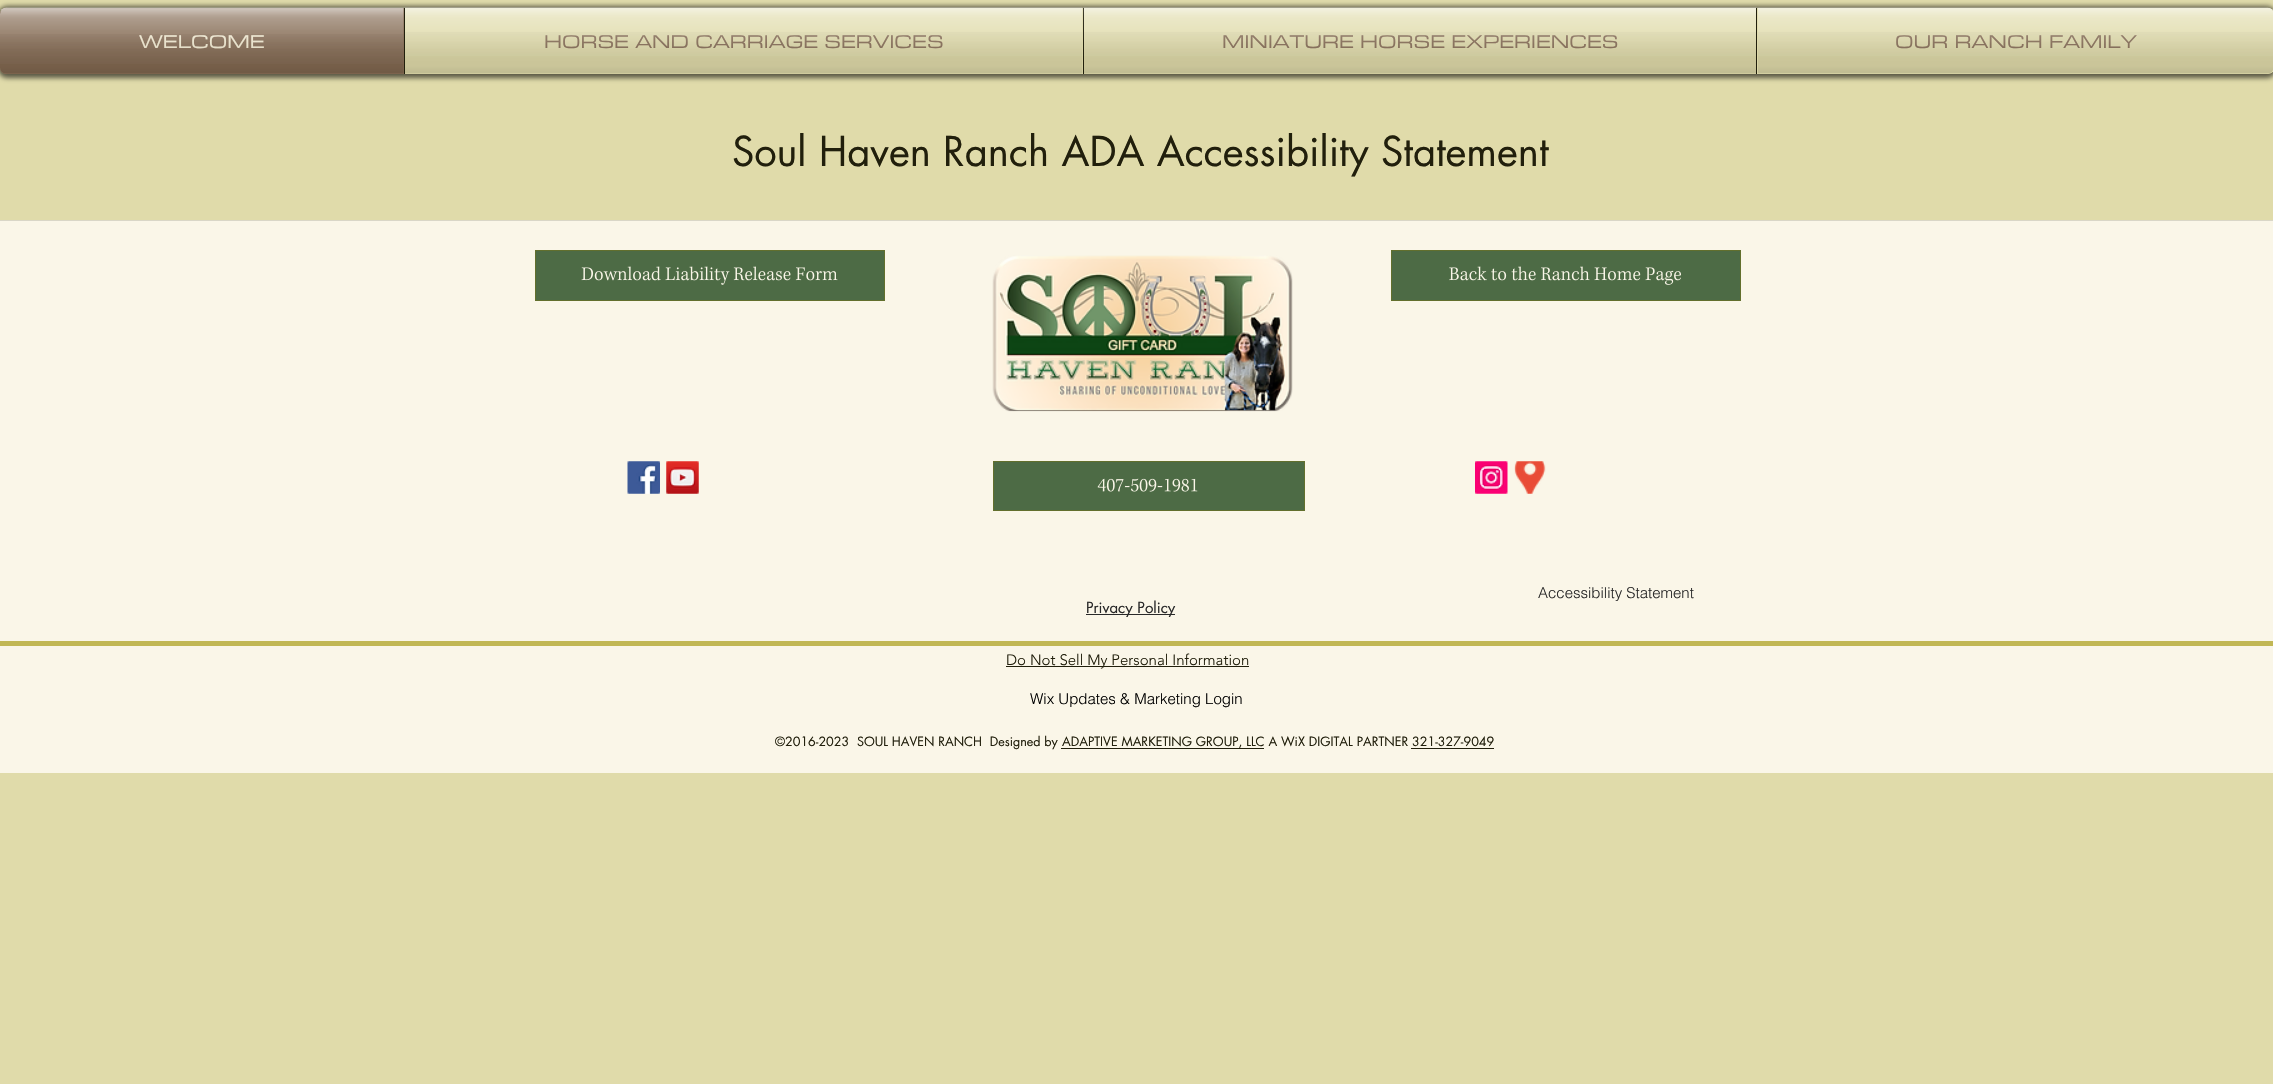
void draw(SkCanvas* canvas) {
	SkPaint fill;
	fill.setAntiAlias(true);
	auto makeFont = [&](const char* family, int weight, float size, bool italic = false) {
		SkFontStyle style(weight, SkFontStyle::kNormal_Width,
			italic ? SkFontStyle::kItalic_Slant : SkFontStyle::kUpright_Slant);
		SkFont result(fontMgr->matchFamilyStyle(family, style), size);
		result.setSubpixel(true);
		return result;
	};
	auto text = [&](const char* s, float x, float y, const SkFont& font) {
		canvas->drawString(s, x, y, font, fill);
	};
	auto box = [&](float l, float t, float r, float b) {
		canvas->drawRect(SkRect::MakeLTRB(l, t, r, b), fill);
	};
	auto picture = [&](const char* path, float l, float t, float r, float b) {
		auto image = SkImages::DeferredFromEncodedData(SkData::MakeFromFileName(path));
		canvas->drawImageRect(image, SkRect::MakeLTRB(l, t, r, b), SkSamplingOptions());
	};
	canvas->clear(0xFFE0DBAA);
	fill.setColor(0x99000000);
	fill.setMaskFilter(SkMaskFilter::MakeBlur(kNormal_SkBlurStyle, 2.5f));
	canvas->drawRoundRect(SkRect::MakeLTRB(-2, 6, 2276, 78), 9, 9, fill);
	fill.setMaskFilter(nullptr);
	picture("image0.png", 0, 7, 2273, 14);
	picture("image1.png", 0, 68, 2269, 74);
	fill.setColor(0xFF836951);
	canvas->drawPath(SkPathBuilder().moveTo(6, 8).lineTo(404, 8).lineTo(404, 74).lineTo(6, 74).cubicTo(2.5f, 74, 0, 71.5f, 0, 68).lineTo(0, 14).cubicTo(0, 10.5f, 2.5f, 8, 6, 8).close().detach(), fill);
	fill.setColor(0xFFE0DBAA);
	box(405, 8, 1083, 74);
	fill.setColor(0xFF211F0C);
	box(404, 8, 405, 74);
	fill.setColor(0xFFE0DBAA);
	box(1084, 8, 1756, 74);
	fill.setColor(0xFF211F0C);
	box(1083, 8, 1084, 74);
	fill.setColor(0xFFFAF6E8);
	box(0, 221, 2273, 773);
	fill.setColor(0xFFD9D6C7);
	box(0, 220, 2273, 221);
	fill.setColor(0xFF4D6B45);
	canvas->drawRect(SkRect::MakeLTRB(535.5f, 250.5f, 884.5f, 300.5f), fill);
	fill.setStyle(SkPaint::kStroke_Style);
	fill.setStrokeWidth(1);
	fill.setColor(0xFF626F2D);
	canvas->drawRect(SkRect::MakeLTRB(535.5f, 250.5f, 884.5f, 300.5f), fill);
	picture("image10.png", 581, 266, 838, 285);
	picture("image11.png", 992, 255, 1293, 412);
	fill.setStyle(SkPaint::kFill_Style);
	fill.setColor(0xFF4D6B45);
	canvas->drawRect(SkRect::MakeLTRB(1391.5f, 250.5f, 1740.5f, 300.5f), fill);
	fill.setStyle(SkPaint::kStroke_Style);
	fill.setColor(0xFF626F2D);
	canvas->drawRect(SkRect::MakeLTRB(1391.5f, 250.5f, 1740.5f, 300.5f), fill);
	picture("image12.png", 1449, 266, 1681, 285);
	picture("image13.png", 627, 461, 660, 494);
	picture("image14.png", 666, 461, 699, 494);
	fill.setStyle(SkPaint::kFill_Style);
	fill.setColor(0xFF4D6B45);
	canvas->drawRect(SkRect::MakeLTRB(993.5f, 461.5f, 1304.5f, 510.5f), fill);
	fill.setStyle(SkPaint::kStroke_Style);
	fill.setColor(0xFF626F2D);
	canvas->drawRect(SkRect::MakeLTRB(993.5f, 461.5f, 1304.5f, 510.5f), fill);
	picture("image15.png", 1097, 478, 1198, 492);
	picture("image16.png", 1475, 461, 1508, 494);
	picture("image17.png", 1514, 461, 1546, 494);
	fill.setStyle(SkPaint::kFill_Style);
	fill.setColor(0xFF292929);
	box(1086, 614, 1175, 615);
	fill.setColor(0xFFC1B754);
	box(0, 641, 2273, 646);
	fill.setColor(0xFF211F0C);
	box(1006, 666, 1249, 667);
	box(1061, 748, 1264, 749);
	box(1411, 748, 1494, 749);
	auto font1 = makeFont("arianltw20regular", 400, 22.5f);
	fill.setColor(0xFFF4ECD2);
	text("WELCOME", 139, 48, font1);
	picture("image2.png", 0, 7, 404, 64);
	picture("image3.png", 0, 34, 404, 74);
	fill.setColor(0xFF836951);
	text("HORSE AND CARRIAGE SERVICES", 544, 48, font1);
	picture("image4.png", 405, 7, 1083, 56);
	picture("image5.png", 405, 32, 1083, 74);
	text("MINIATURE HORSE EXPERIENCES", 1222, 48, font1);
	picture("image6.png", 1083, 7, 1757, 56);
	picture("image7.png", 1084, 32, 1756, 74);
	fill.setColor(0xFFE0DBAA);
	canvas->drawPath(SkPathBuilder().moveTo(1756, 8).lineTo(2268, 8).cubicTo(2271.5f, 8, 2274, 10.5f, 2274, 14).lineTo(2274, 68).cubicTo(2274, 71.5f, 2271.5f, 74, 2268, 74).lineTo(1756, 74).close().detach(), fill);
	fill.setColor(0xFF211F0C);
	box(1756, 8, 1757, 74);
	fill.setColor(0xFF836951);
	text("OUR RANCH FAMILY", 1895, 48, font1);
	picture("image8.png", 1757, 7, 2273, 56);
	picture("image9.png", 1757, 32, 2273, 74);
	auto font2 = makeFont("futura", 400, 40);
	fill.setColor(0xFF211F0C);
	text("Soul Haven Ranch ADA Accessibility Statement", 732, 166, font2);
	auto font3 = makeFont("helvetica", 300, 15);
	fill.setColor(0xFF292929);
	text("Accessibility Statement", 1538, 598, font3);
	auto font4 = makeFont("futura", 400, 15);
	text("Privacy Policy", 1086, 613, font4);
	auto font5 = makeFont("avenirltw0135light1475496", 300, 15);
	fill.setColor(0xFF211F0C);
	text("Do Not Sell My Personal Information", 1006, 665, font5);
	fill.setColor(0xFF000000);
	text("Wix Updates & Marketing Login", 1030, 704, font3);
	auto font6 = makeFont("futura", 400, 12.5f);
	fill.setColor(0xFF211F0C);
	text("©2016-2023  SOUL HAVEN RANCH  Designed by", 775, 746, font6);
	text("ADAPTIVE MARKETING GROUP, LLC A WiX DIGITAL PARTNER 321-327-9049", 1062, 746, font6);
}
